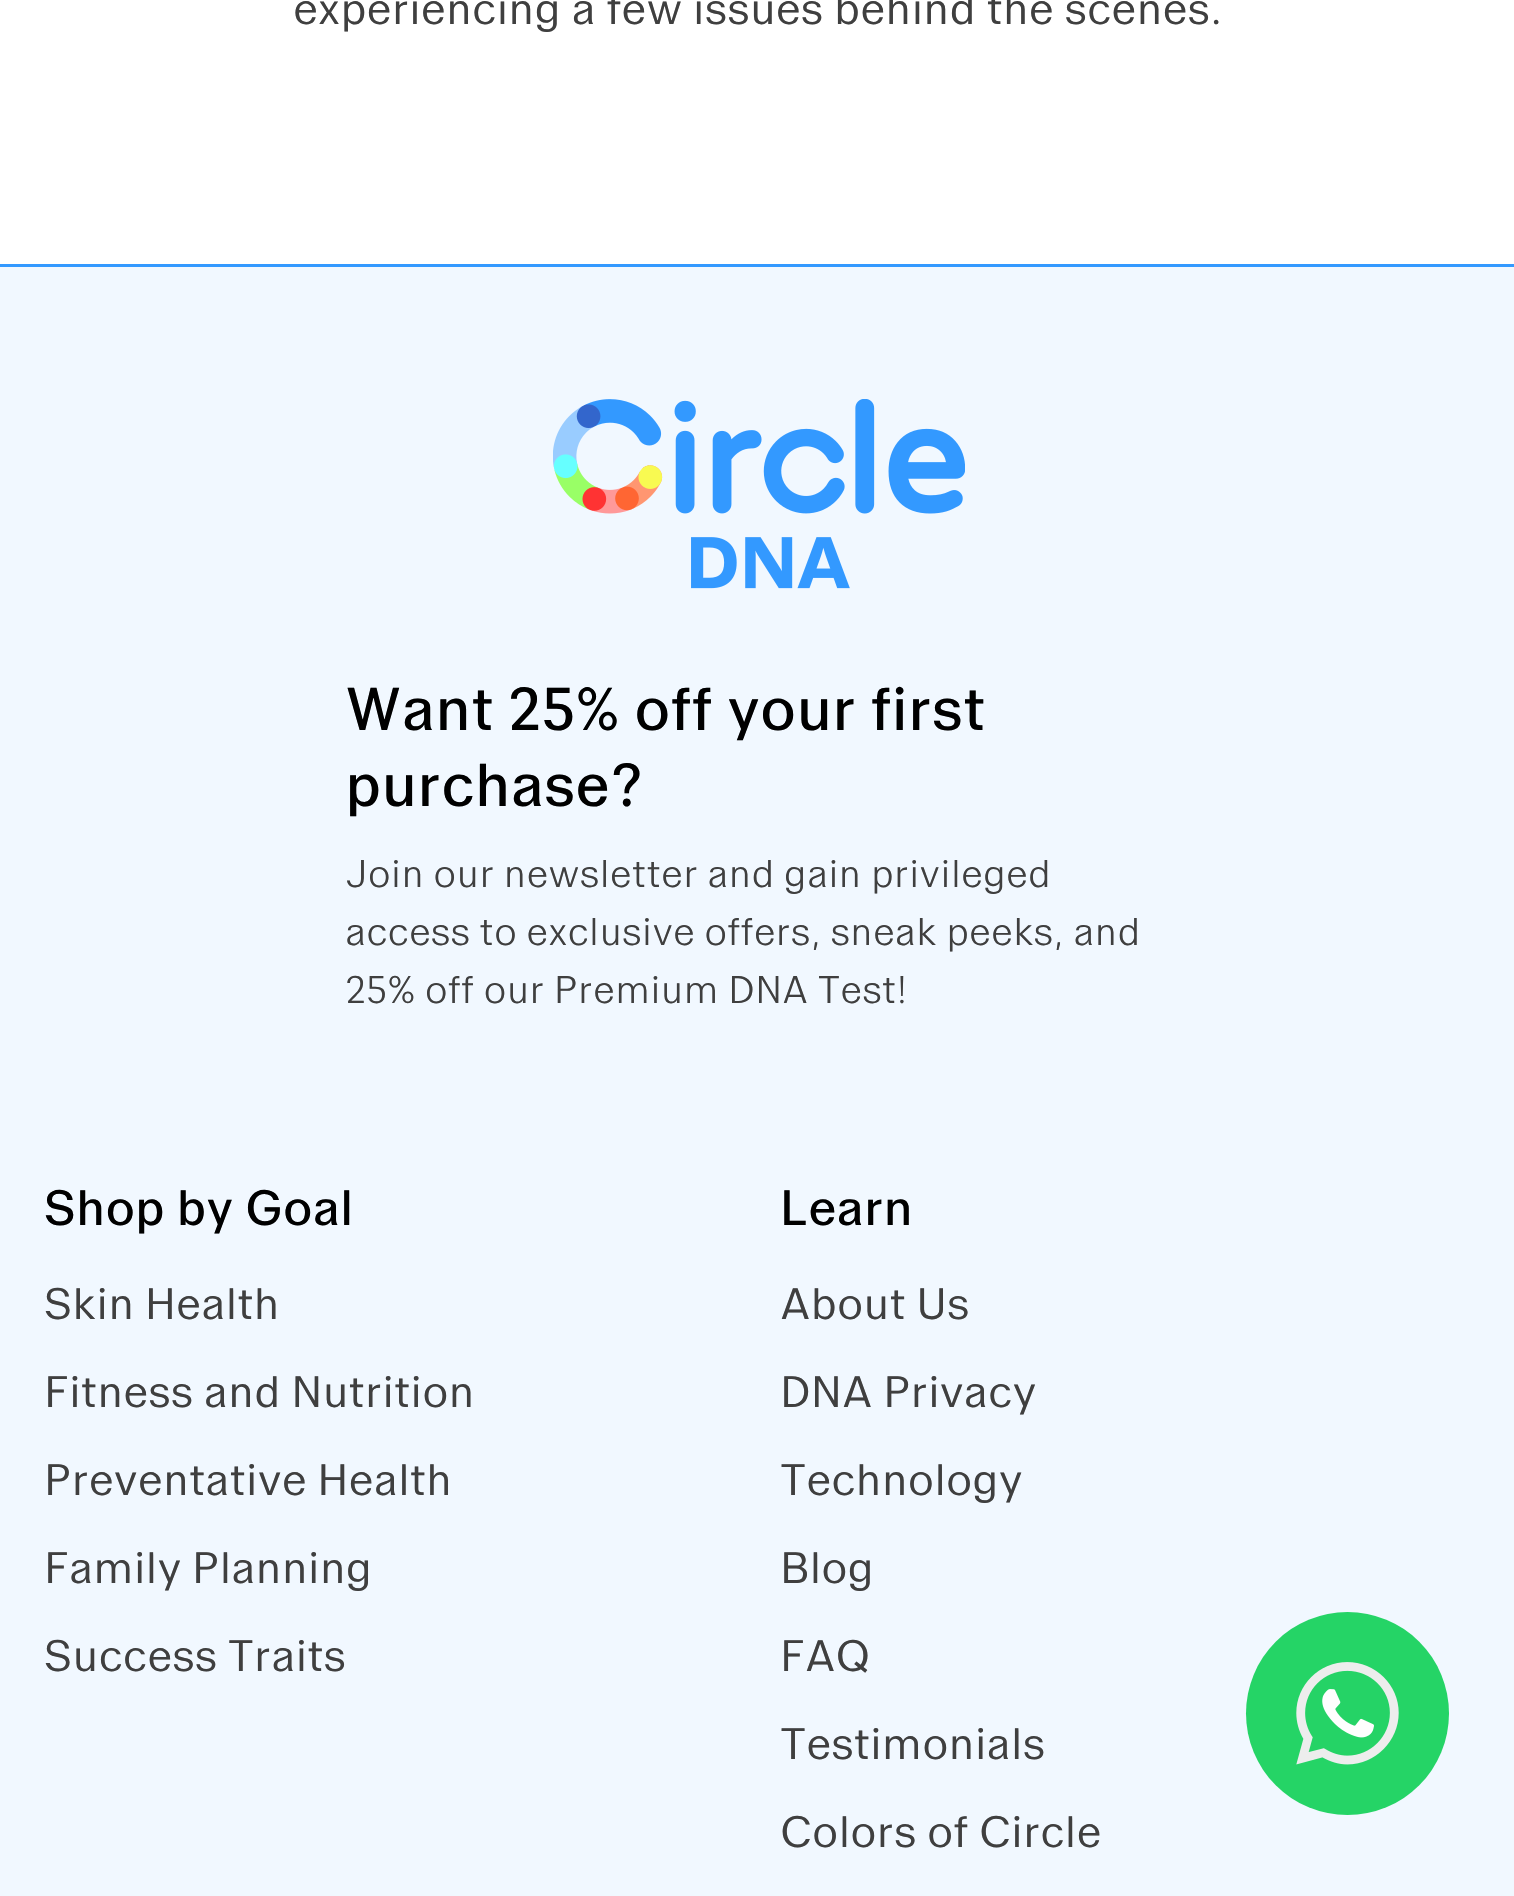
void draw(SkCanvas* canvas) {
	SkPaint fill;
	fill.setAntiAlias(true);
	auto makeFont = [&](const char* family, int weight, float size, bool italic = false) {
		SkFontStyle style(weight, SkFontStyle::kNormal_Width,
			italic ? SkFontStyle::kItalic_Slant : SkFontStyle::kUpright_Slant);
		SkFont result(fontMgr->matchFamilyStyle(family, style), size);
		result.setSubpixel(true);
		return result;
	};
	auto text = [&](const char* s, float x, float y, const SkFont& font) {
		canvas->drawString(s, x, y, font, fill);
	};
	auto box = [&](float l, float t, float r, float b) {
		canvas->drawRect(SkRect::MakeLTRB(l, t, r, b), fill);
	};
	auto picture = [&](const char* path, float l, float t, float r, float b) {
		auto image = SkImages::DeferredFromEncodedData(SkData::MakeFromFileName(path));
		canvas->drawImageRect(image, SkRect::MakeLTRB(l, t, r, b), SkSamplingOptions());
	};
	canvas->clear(0xFFFFFFFF);
	fill.setColor(0xFFF1F8FF);
	box(0, 267, 1514, 1896);
	fill.setColor(0xFF3399FF);
	box(0, 264, 1514, 267);
	picture("image0.png", 553, 399, 965, 589);
	fill.setColor(0xFF25D466);
	canvas->drawCircle(1347.5f, 1713.5f, 101.5f, fill);
	picture("image1.png", 1296, 1662, 1399, 1765);
	auto font1 = makeFont("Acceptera", 400, 44);
	fill.setColor(0xFF3F3F3F);
	text("experiencing a few issues behind the scenes.", 293, 24, font1);
	auto font2 = makeFont("Acceptera", 500, 60.5f);
	fill.setColor(0xFF000000);
	text("Want 25% off your first", 345, 730, font2);
	text("purchase?", 345, 806, font2);
	auto font3 = makeFont("Acceptera", 300, 38.5f);
	fill.setColor(0xFF3F3F3F);
	text("Join our newsletter and gain privileged", 345, 887, font3);
	text("access to exclusive offers, sneak peeks, and", 345, 945, font3);
	text("25% off our Premium DNA Test!", 345, 1003, font3);
	auto font4 = makeFont("Acceptera", 500, 49.5f);
	fill.setColor(0xFF000000);
	text("Shop by Goal", 44, 1225, font4);
	fill.setColor(0xFF3F3F3F);
	text("Skin Health", 44, 1319, font1);
	text("Fitness and Nutrition", 44, 1407, font1);
	text("Preventative Health", 44, 1495, font1);
	text("Family Planning", 44, 1583, font1);
	text("Success Traits", 44, 1671, font1);
	fill.setColor(0xFF000000);
	text("Learn", 780, 1225, font4);
	fill.setColor(0xFF3F3F3F);
	text("About Us", 780, 1319, font1);
	text("DNA Privacy", 780, 1407, font1);
	text("Technology", 780, 1495, font1);
	text("Blog", 780, 1583, font1);
	text("FAQ", 780, 1671, font1);
	text("Testimonials", 780, 1759, font1);
	text("Colors of Circle", 780, 1847, font1);
}
